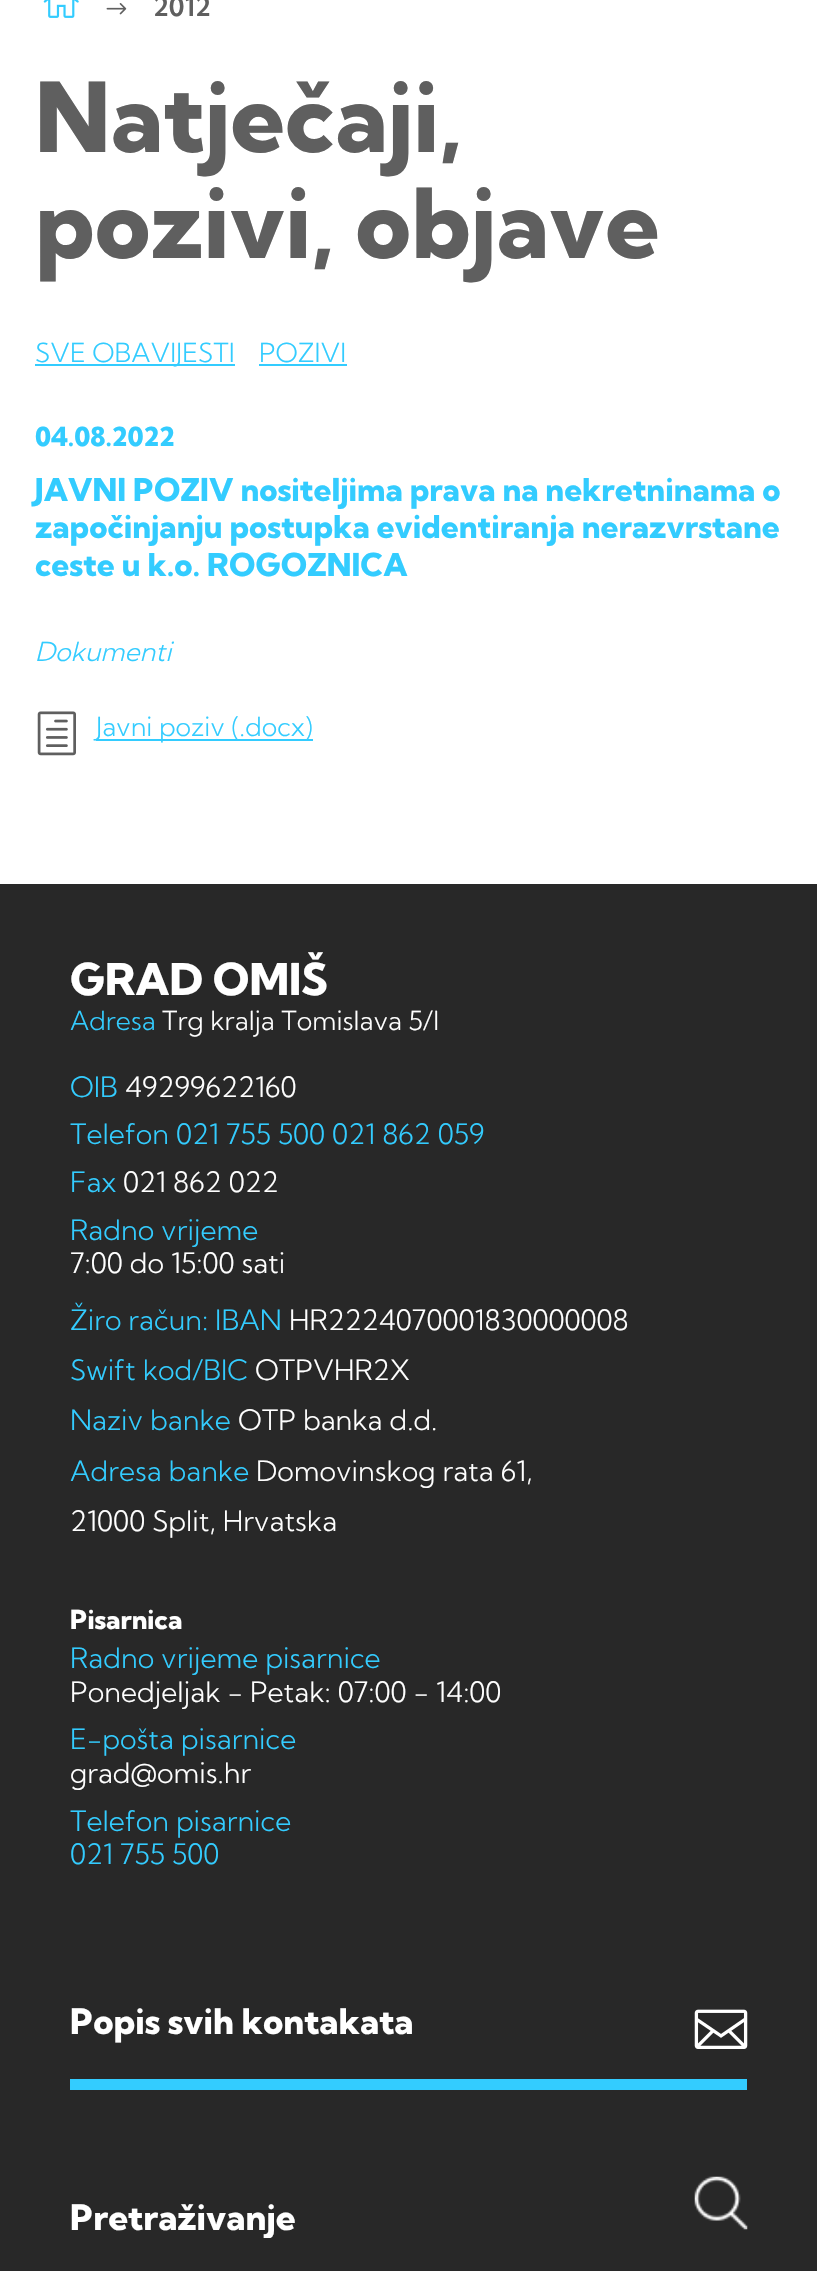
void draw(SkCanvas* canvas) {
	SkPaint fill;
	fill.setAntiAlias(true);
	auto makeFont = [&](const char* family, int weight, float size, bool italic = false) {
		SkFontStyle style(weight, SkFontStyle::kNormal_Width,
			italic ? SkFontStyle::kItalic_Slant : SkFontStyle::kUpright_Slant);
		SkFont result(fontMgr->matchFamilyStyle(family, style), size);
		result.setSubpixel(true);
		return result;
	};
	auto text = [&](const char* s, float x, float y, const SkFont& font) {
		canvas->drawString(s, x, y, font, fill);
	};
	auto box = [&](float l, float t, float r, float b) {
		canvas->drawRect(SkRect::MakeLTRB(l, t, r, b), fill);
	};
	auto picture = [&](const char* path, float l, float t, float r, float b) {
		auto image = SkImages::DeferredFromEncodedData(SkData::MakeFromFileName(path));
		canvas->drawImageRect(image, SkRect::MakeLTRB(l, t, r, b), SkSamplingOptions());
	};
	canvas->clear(0xFFFFFFFF);
	picture("image0.png", 43, 0, 79, 18);
	picture("image1.png", 106, 3, 127, 15);
	fill.setColor(0xFF33CCFF);
	box(35, 364, 235, 366);
	box(259, 364, 347, 366);
	picture("image2.png", 37, 711, 76, 756);
	box(96, 739, 313, 741);
	fill.setColor(0xFF282828);
	box(0, 884, 817, 2271);
	fill.setColor(0xFF33CCFF);
	box(70, 2079, 747, 2090);
	picture("image3.png", 694, 2009, 748, 2049);
	picture("image4.png", 694, 2176, 748, 2230);
	auto font1 = makeFont("Kumbh Sans", 600, 26.25f);
	fill.setColor(0xFF5F5F5F);
	text("2012", 153, 16, font1);
	auto font2 = makeFont("Kumbh Sans", 800, 96.25f);
	text("Natječaji,", 35, 152, font2);
	text("pozivi, objave", 35, 258, font2);
	auto font3 = makeFont("Kumbh Sans", 300, 26.25f);
	fill.setColor(0xFF33CCFF);
	text("SVE OBAVIJESTI", 35, 362, font3);
	text("POZIVI", 259, 362, font3);
	auto font4 = makeFont("Kumbh Sans", 800, 26.25f);
	text("04.08.2022", 35, 446, font4);
	auto font5 = makeFont("Kumbh Sans", 800, 31.5f);
	text("JAVNI POZIV nositeljima prava na nekretninama o", 35, 501, font5);
	text("započinjanju postupka evidentiranja nerazvrstane", 35, 538, font5);
	text("ceste u k.o. ROGOZNICA", 35, 576, font5);
	auto font6 = makeFont("Kumbh Sans", 300, 26.25f, true);
	text("Dokumenti", 35, 661, font6);
	text("Javni poziv (.docx)", 96, 736, font3);
	auto font7 = makeFont("Kumbh Sans", 800, 43.75f);
	fill.setColor(0xFFFFFFFF);
	text("GRAD OMIŠ", 70, 995, font7);
	fill.setColor(0xFF33CCFF);
	text("Adresa", 70, 1030, font3);
	fill.setColor(0xFFFFFFFF);
	text("Trg kralja Tomislava 5/I", 162, 1030, font3);
	auto font8 = makeFont("Kumbh Sans", 300, 28);
	fill.setColor(0xFF33CCFF);
	text("OIB", 70, 1097, font8);
	fill.setColor(0xFFFFFFFF);
	text("49299622160", 125, 1097, font8);
	fill.setColor(0xFF33CCFF);
	text("Telefon 021 755 500 021 862 059", 70, 1144, font8);
	text("Fax", 70, 1192, font8);
	fill.setColor(0xFFFFFFFF);
	text("021 862 022", 123, 1192, font8);
	fill.setColor(0xFF33CCFF);
	text("Radno vrijeme", 70, 1240, font8);
	fill.setColor(0xFFFFFFFF);
	text("7:00 do 15:00 sati", 70, 1273, font8);
	fill.setColor(0xFF33CCFF);
	text("Žiro račun: IBAN", 70, 1330, font8);
	fill.setColor(0xFFFFFFFF);
	text("HR2224070001830000008", 289, 1330, font8);
	fill.setColor(0xFF33CCFF);
	text("Swift kod/BIC", 70, 1380, font8);
	fill.setColor(0xFFFFFFFF);
	text("OTPVHR2X", 255, 1380, font8);
	fill.setColor(0xFF33CCFF);
	text("Naziv banke", 70, 1430, font8);
	fill.setColor(0xFFFFFFFF);
	text("OTP banka d.d.", 238, 1430, font8);
	fill.setColor(0xFF33CCFF);
	text("Adresa banke", 70, 1481, font8);
	fill.setColor(0xFFFFFFFF);
	text("Domovinskog rata 61,", 256, 1481, font8);
	text("21000 Split, Hrvatska", 70, 1531, font8);
	text("Pisarnica", 70, 1629, font4);
	fill.setColor(0xFF33CCFF);
	text("Radno vrijeme pisarnice", 70, 1668, font8);
	fill.setColor(0xFFFFFFFF);
	text("Ponedjeljak - Petak: 07:00 - 14:00", 70, 1702, font8);
	fill.setColor(0xFF33CCFF);
	text("E-pošta pisarnice", 70, 1749, font8);
	fill.setColor(0xFFFFFFFF);
	text("grad@omis.hr", 70, 1783, font8);
	fill.setColor(0xFF33CCFF);
	text("Telefon pisarnice", 70, 1831, font8);
	text("021 755 500", 70, 1864, font8);
	auto font9 = makeFont("Kumbh Sans", 800, 35);
	fill.setColor(0xFFFFFFFF);
	text("Popis svih kontakata", 70, 2034, font9);
	canvas->save();
	canvas->clipRect(SkRect::MakeLTRB(70, 2195, 721, 2238));
	text("Pretraživanje", 70, 2230, font9);
	canvas->restore();
}
